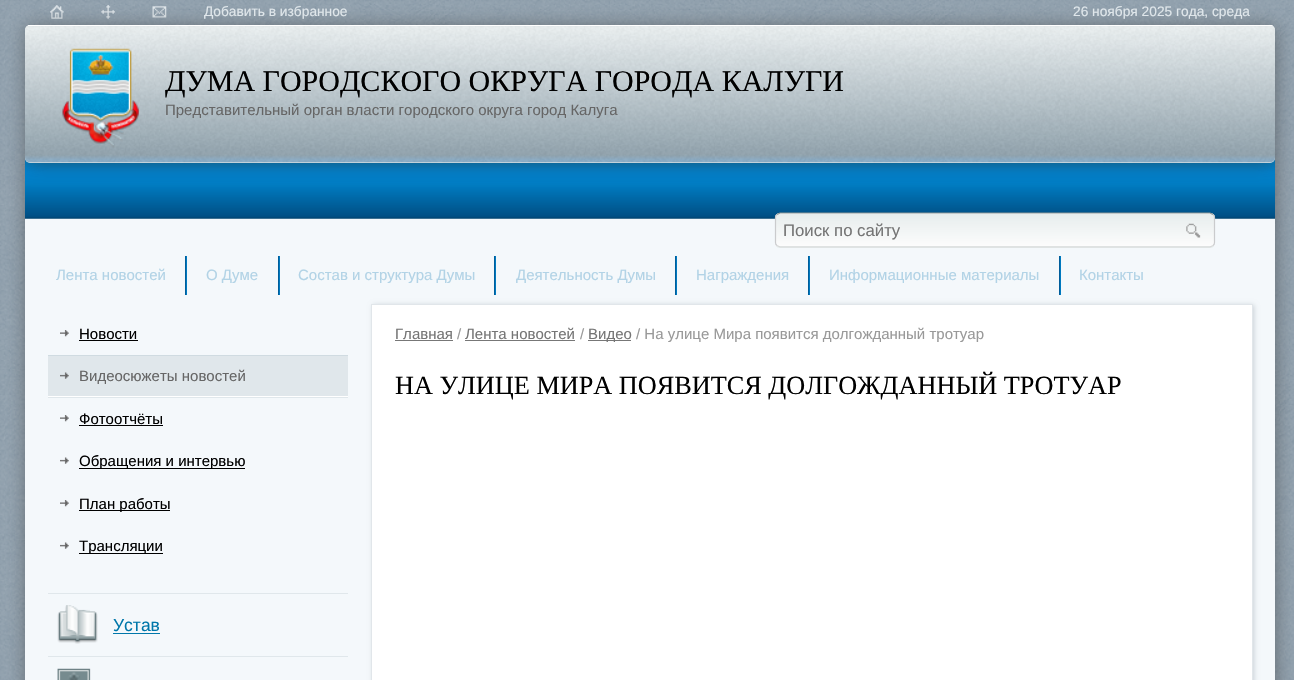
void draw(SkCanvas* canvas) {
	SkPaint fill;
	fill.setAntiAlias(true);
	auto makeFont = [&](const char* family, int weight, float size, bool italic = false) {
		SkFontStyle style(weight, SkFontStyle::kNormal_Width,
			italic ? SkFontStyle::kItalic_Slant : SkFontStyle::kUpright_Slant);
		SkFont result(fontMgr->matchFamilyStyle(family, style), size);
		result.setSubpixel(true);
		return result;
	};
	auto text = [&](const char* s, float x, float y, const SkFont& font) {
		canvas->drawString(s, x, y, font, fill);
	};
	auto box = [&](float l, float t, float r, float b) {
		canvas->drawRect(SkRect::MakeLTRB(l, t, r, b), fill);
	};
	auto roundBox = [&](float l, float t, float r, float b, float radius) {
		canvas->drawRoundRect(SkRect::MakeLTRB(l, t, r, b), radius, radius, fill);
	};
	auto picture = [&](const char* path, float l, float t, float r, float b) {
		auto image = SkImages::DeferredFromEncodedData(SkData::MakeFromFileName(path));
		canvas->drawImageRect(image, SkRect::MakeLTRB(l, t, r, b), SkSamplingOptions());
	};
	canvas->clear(0xFFFFFFFF);
	picture("image0.png", 0, 0, 1294, 680);
	picture("image1.png", 50, 5, 64, 19);
	picture("image2.png", 101, 5, 115, 19);
	picture("image3.png", 152, 6, 167, 18);
	fill.setColor(0x80323232);
	fill.setMaskFilter(SkMaskFilter::MakeBlur(kNormal_SkBlurStyle, 9.5f));
	canvas->drawRoundRect(SkRect::MakeLTRB(26, 26, 1276, 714), 5, 5, fill);
	fill.setMaskFilter(nullptr);
	fill.setColor(0xFFF4F8FB);
	roundBox(25, 25, 1275, 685, 5);
	picture("image4.png", 25, 158, 1275, 219);
	canvas->save();
	canvas->clipPath(SkPathBuilder().moveTo(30, 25).lineTo(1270, 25).cubicTo(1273, 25, 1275, 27, 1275, 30).lineTo(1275, 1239).cubicTo(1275, 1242, 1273, 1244, 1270, 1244).lineTo(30, 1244).cubicTo(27, 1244, 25, 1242, 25, 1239).lineTo(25, 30).cubicTo(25, 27, 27, 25, 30, 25).close().detach(), true);
	fill.setColor(0x80323232);
	fill.setMaskFilter(SkMaskFilter::MakeBlur(kNormal_SkBlurStyle, 9.5f));
	canvas->drawRoundRect(SkRect::MakeLTRB(26, 26, 1276, 164), 5, 5, fill);
	fill.setMaskFilter(nullptr);
	canvas->restore();
	fill.setColor(0xFFD6DEE1);
	roundBox(25, 25, 1275, 163, 5);
	picture("image5.png", 25, 26, 1275, 163);
	canvas->save();
	canvas->clipPath(SkPathBuilder().moveTo(30, 25).lineTo(1270, 25).cubicTo(1273, 25, 1275, 27, 1275, 30).lineTo(1275, 1239).cubicTo(1275, 1242, 1273, 1244, 1270, 1244).lineTo(30, 1244).cubicTo(27, 1244, 25, 1242, 25, 1239).lineTo(25, 30).cubicTo(25, 27, 27, 25, 30, 25).close().detach(), true);
	fill.setColor(0xFFFFFFFF);
	box(28, 25, 1273, 26);
	canvas->restore();
	picture("image6.png", 62, 48, 139, 148);
	canvas->save();
	canvas->clipPath(SkPathBuilder().moveTo(780, 213).lineTo(1210, 213).cubicTo(1213, 213, 1215, 215, 1215, 218).lineTo(1215, 243).cubicTo(1215, 246, 1213, 248, 1210, 248).lineTo(780, 248).cubicTo(777, 248, 775, 246, 775, 243).lineTo(775, 218).cubicTo(775, 215, 777, 213, 780, 213).close().detach(), true);
	{
		const SkColor colors[] = {0xFFE7EDED, 0xFFFCFCFC};
		const float stops[] = {0, 1};
		const SkPoint ends[] = {{995, 181}, {995, 214}};
		fill.setShader(SkGradientShader::MakeLinear(ends, colors, stops, 2, SkTileMode::kClamp));
		fill.setAlpha(255);
	}
	box(775, 213, 1215, 214);
	{
		const SkColor colors[] = {0xFFE7EDED, 0xFFFCFCFC};
		const float stops[] = {0, 1};
		const SkPoint ends[] = {{995, 214}, {995, 246}};
		fill.setShader(SkGradientShader::MakeLinear(ends, colors, stops, 2, SkTileMode::kClamp));
		fill.setAlpha(255);
	}
	box(775, 214, 1215, 246);
	{
		const SkColor colors[] = {0xFFE7EDED, 0xFFFCFCFC};
		const float stops[] = {0, 1};
		const SkPoint ends[] = {{995, 246}, {995, 279}};
		fill.setShader(SkGradientShader::MakeLinear(ends, colors, stops, 2, SkTileMode::kClamp));
		fill.setAlpha(255);
	}
	box(775, 246, 1215, 248);
	canvas->restore();
	fill.setStyle(SkPaint::kStroke_Style);
	fill.setStrokeWidth(1.2f);
	fill.setShader(nullptr);
	fill.setColor(0xFF8B9495);
	canvas->drawPath(SkPathBuilder().moveTo(777, 214.5f).lineTo(780, 213).lineTo(1210, 213).lineTo(1213, 214.5f).detach(), fill);
	fill.setColor(0xFFCACBCD);
	canvas->drawPath(SkPathBuilder().moveTo(1213, 214.5f).cubicTo(1214, 215, 1214.5f, 216.5f, 1214.5f, 217.5f).lineTo(1214.5f, 242.5f).cubicTo(1214.5f, 243.5f, 1214, 245, 1213, 245.5f).detach(), fill);
	fill.setColor(0xFFD7D8D8);
	canvas->drawPath(SkPathBuilder().moveTo(1213, 245.5f).lineTo(1210, 247).lineTo(780, 247).lineTo(777, 245.5f).detach(), fill);
	fill.setColor(0xFFCACBCD);
	canvas->drawPath(SkPathBuilder().moveTo(777, 245.5f).cubicTo(776, 245, 775.5f, 243.5f, 775.5f, 242.5f).lineTo(775.5f, 217.5f).cubicTo(775.5f, 216.5f, 776, 215, 777, 214.5f).detach(), fill);
	picture("image7.png", 1186, 223, 1201, 238);
	fill.setStyle(SkPaint::kFill_Style);
	fill.setColor(0xFF005E9B);
	box(185, 256, 186, 295);
	box(278, 256, 279, 295);
	fill.setColor(0xFF0079BF);
	box(186, 256, 187, 295);
	fill.setColor(0xFF005E9B);
	box(494, 256, 495, 295);
	fill.setColor(0xFF0079BF);
	box(279, 256, 280, 295);
	fill.setColor(0xFF005E9B);
	box(675, 256, 676, 295);
	fill.setColor(0xFF0079BF);
	box(495, 256, 496, 295);
	fill.setColor(0xFF005E9B);
	box(808, 256, 809, 295);
	fill.setColor(0xFF0079BF);
	box(676, 256, 677, 295);
	fill.setColor(0xFF005E9B);
	box(1059, 256, 1060, 295);
	fill.setColor(0xFF0079BF);
	box(809, 256, 810, 295);
	box(1060, 256, 1061, 295);
	picture("image8.png", 60, 330, 69, 337);
	fill.setColor(0xFF000000);
	box(79, 340, 138, 341);
	fill.setColor(0xFFE0E7EB);
	box(48, 356, 348, 398);
	picture("image9.png", 60, 372, 69, 379);
	fill.setColor(0xFFD0DBE1);
	box(48, 355, 348, 356);
	fill.setColor(0xFFFFFFFF);
	box(48, 396, 348, 397);
	picture("image8.png", 60, 415, 69, 422);
	fill.setColor(0xFF000000);
	box(79, 425, 163, 426);
	picture("image10.png", 60, 457, 69, 464);
	box(79, 468, 245, 469);
	picture("image8.png", 60, 500, 69, 507);
	box(79, 510, 170, 511);
	picture("image10.png", 60, 542, 69, 549);
	box(79, 553, 163, 554);
	fill.setColor(0xFFE0E7EB);
	box(48, 593, 348, 594);
	picture("image11.png", 57, 605, 98, 644);
	box(48, 656, 348, 657);
	fill.setColor(0xFF0077AA);
	box(113, 633, 160, 634);
	picture("image12.png", 57, 668, 91, 680);
	fill.setColor(0xFFC9D0D6);
	fill.setMaskFilter(SkMaskFilter::MakeBlur(kNormal_SkBlurStyle, 2.5f));
	canvas->drawRect(SkRect::MakeLTRB(373, 305, 1254, 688), fill);
	fill.setMaskFilter(nullptr);
	fill.setColor(0xFFFFFFFF);
	canvas->drawRect(SkRect::MakeLTRB(371.5f, 304.5f, 1252.5f, 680.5f), fill);
	fill.setStyle(SkPaint::kStroke_Style);
	fill.setStrokeWidth(1);
	fill.setColor(0xFFE1E6EA);
	canvas->drawRect(SkRect::MakeLTRB(371.5f, 304.5f, 1252.5f, 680.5f), fill);
	fill.setStyle(SkPaint::kFill_Style);
	fill.setColor(0xFF777777);
	box(395, 340, 453, 341);
	box(465, 340, 575, 341);
	box(588, 340, 631, 341);
	auto font1 = makeFont("Liberation Sans", 400, 13.75f);
	fill.setColor(0xFFE0E7EB);
	text("Добавить в избранное", 204, 16, font1);
	text("26 ноября 2025 года, среда", 1073, 16, font1);
	auto font2 = makeFont("Liberation Serif", 400, 30);
	fill.setColor(0xFF000000);
	text("ДУМА ГОРОДСКОГО ОКРУГА ГОРОДА КАЛУГИ", 165, 91, font2);
	auto font3 = makeFont("Liberation Sans", 400, 15);
	fill.setColor(0xFF666666);
	text("Представительный орган власти городского округа город Калуга", 165, 115, font3);
	auto font4 = makeFont("Liberation Sans", 400, 16.75f);
	fill.setColor(0xFF757575);
	text("Поиск по сайту", 783, 236, font4);
	fill.setColor(0xFFB2D3E6);
	text("Лента новостей", 56, 280, font3);
	text("О Думе", 206, 280, font3);
	text("Состав и структура Думы", 298, 280, font3);
	text("Деятельность Думы", 516, 280, font3);
	text("Награждения", 696, 280, font3);
	text("Информационные материалы", 829, 280, font3);
	text("Контакты", 1079, 280, font3);
	fill.setColor(0xFF000000);
	text("Новости", 79, 339, font3);
	fill.setColor(0xFF666666);
	text("Видеосюжеты новостей", 79, 381, font3);
	fill.setColor(0xFF000000);
	text("Фотоотчёты", 79, 424, font3);
	text("Обращения и интервью", 79, 466, font3);
	text("План работы", 79, 509, font3);
	text("Трансляции", 79, 551, font3);
	auto font5 = makeFont("Liberation Sans", 400, 17.5f);
	fill.setColor(0xFF0077AA);
	text("Устав", 113, 631, font5);
	fill.setColor(0xFF757575);
	text("Главная", 395, 339, font3);
	fill.setColor(0xFF999999);
	text("/", 457, 339, font3);
	fill.setColor(0xFF757575);
	text("Лента новостей", 465, 339, font3);
	fill.setColor(0xFF999999);
	text("/", 580, 339, font3);
	fill.setColor(0xFF757575);
	text("Видео", 588, 339, font3);
	fill.setColor(0xFF999999);
	text("/ На улице Мира появится долгожданный тротуар", 636, 339, font3);
	auto font6 = makeFont("Liberation Serif", 400, 26.25f);
	fill.setColor(0xFF000000);
	text("НА УЛИЦЕ МИРА ПОЯВИТСЯ ДОЛГОЖДАННЫЙ ТРОТУАР", 395, 394, font6);
}
